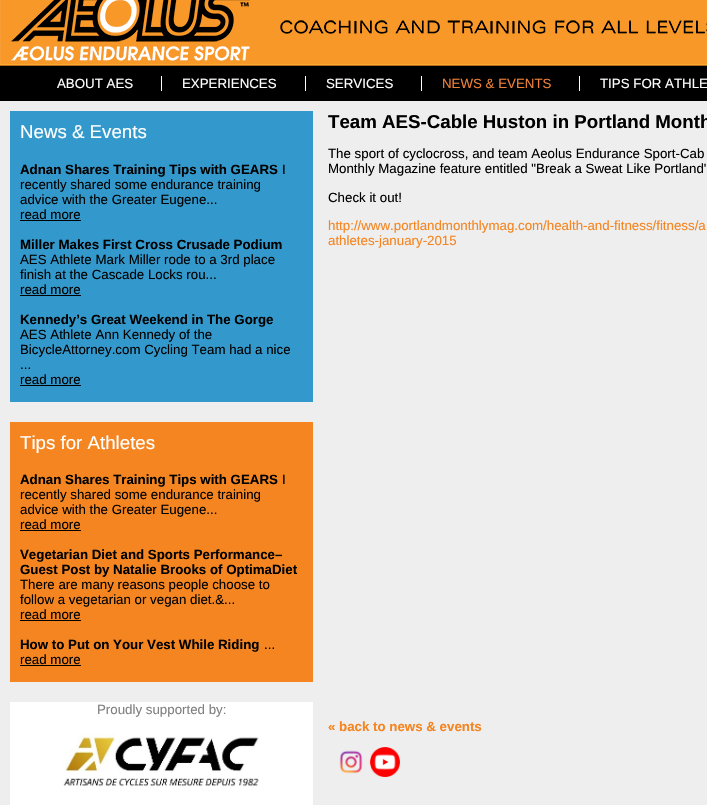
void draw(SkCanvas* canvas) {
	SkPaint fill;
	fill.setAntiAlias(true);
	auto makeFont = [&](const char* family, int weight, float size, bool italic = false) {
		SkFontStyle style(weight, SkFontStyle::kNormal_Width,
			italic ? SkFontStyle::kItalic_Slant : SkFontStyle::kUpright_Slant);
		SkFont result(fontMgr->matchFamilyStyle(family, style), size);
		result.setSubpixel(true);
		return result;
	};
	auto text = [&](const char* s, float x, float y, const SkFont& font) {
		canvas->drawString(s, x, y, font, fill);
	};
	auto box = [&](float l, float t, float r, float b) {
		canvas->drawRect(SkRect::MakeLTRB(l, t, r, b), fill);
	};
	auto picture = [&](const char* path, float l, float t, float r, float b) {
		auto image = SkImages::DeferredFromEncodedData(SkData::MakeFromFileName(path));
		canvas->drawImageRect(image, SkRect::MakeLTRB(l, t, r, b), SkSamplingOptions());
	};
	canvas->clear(0xFFEEEEEF);
	picture("image0.png", 0, 0, 707, 66);
	fill.setColor(0xFF000000);
	box(0, 66, 707, 101);
	fill.setColor(0xFFFFFFFF);
	box(161, 76, 162, 91);
	box(305, 76, 306, 91);
	box(421, 76, 422, 91);
	box(579, 76, 580, 91);
	fill.setColor(0xFF3399CC);
	box(10, 111, 313, 402);
	fill.setColor(0xFF000000);
	box(20, 220, 81, 221);
	box(20, 295, 81, 296);
	box(20, 385, 81, 386);
	fill.setColor(0xFFF48520);
	box(10, 422, 313, 682);
	fill.setColor(0xFF000000);
	box(20, 530, 81, 531);
	box(20, 620, 81, 621);
	box(20, 665, 81, 666);
	fill.setColor(0xFFFFFFFF);
	box(10, 702, 313, 805);
	picture("image1.png", 62, 733, 259, 787);
	picture("image2.png", 339, 750, 363, 774);
	picture("image3.png", 370, 747, 400, 777);
	auto font1 = makeFont("Liberation Sans", 400, 13.3f);
	text("ABOUT AES", 57, 88, font1);
	text("EXPERIENCES", 182, 88, font1);
	text("SERVICES", 326, 88, font1);
	fill.setColor(0xFFED8137);
	text("NEWS & EVENTS", 442, 88, font1);
	fill.setColor(0xFFFFFFFF);
	text("TIPS FOR ATHLE", 600, 88, font1);
	auto font2 = makeFont("Liberation Sans", 400, 18.7f);
	text("News & Events", 20, 138, font2);
	auto font3 = makeFont("Liberation Sans", 700, 13.3f);
	fill.setColor(0xFF000000);
	text("Adnan Shares Training Tips with GEARS", 20, 174, font3);
	text("I", 282, 174, font1);
	text("recently shared some endurance training", 20, 189, font1);
	text("advice with the Greater Eugene...", 20, 204, font1);
	text("read more", 20, 219, font1);
	text("Miller Makes First Cross Crusade Podium", 20, 249, font3);
	text("AES Athlete Mark Miller rode to a 3rd place", 20, 264, font1);
	text("finish at the Cascade Locks rou...", 20, 279, font1);
	text("read more", 20, 294, font1);
	text("Kennedy’s Great Weekend in The Gorge", 20, 324, font3);
	text("AES Athlete Ann Kennedy of the", 20, 339, font1);
	text("BicycleAttorney.com Cycling Team had a nice", 20, 354, font1);
	text("...", 20, 369, font1);
	text("read more", 20, 384, font1);
	fill.setColor(0xFFFFFFFF);
	text("Tips for Athletes", 20, 449, font2);
	fill.setColor(0xFF000000);
	text("Adnan Shares Training Tips with GEARS", 20, 484, font3);
	text("I", 282, 484, font1);
	text("recently shared some endurance training", 20, 499, font1);
	text("advice with the Greater Eugene...", 20, 514, font1);
	text("read more", 20, 529, font1);
	text("Vegetarian Diet and Sports Performance–", 20, 559, font3);
	text("Guest Post by Natalie Brooks of OptimaDiet", 20, 574, font3);
	text("There are many reasons people choose to", 20, 589, font1);
	text("follow a vegetarian or vegan diet.&...", 20, 604, font1);
	text("read more", 20, 619, font1);
	text("How to Put on Your Vest While Riding", 20, 649, font3);
	text("...", 264, 649, font1);
	text("read more", 20, 664, font1);
	fill.setColor(0xFF808080);
	text("Proudly supported by:", 97, 714, font1);
	auto font4 = makeFont("Liberation Sans", 700, 18.7f);
	fill.setColor(0xFF000000);
	text("Team AES-Cable Huston in Portland Month", 328, 128, font4);
	text("The sport of cyclocross, and team Aeolus Endurance Sport-Cab", 328, 158, font1);
	text("Monthly Magazine feature entitled \"Break a Sweat Like Portland'", 328, 173, font1);
	text("Check it out!", 328, 202, font1);
	fill.setColor(0xFFF48520);
	text("http://www.portlandmonthlymag.com/health-and-fitness/fitness/a", 328, 230, font1);
	text("athletes-january-2015", 328, 245, font1);
	text("« back to news & events", 328, 731, font3);
}
